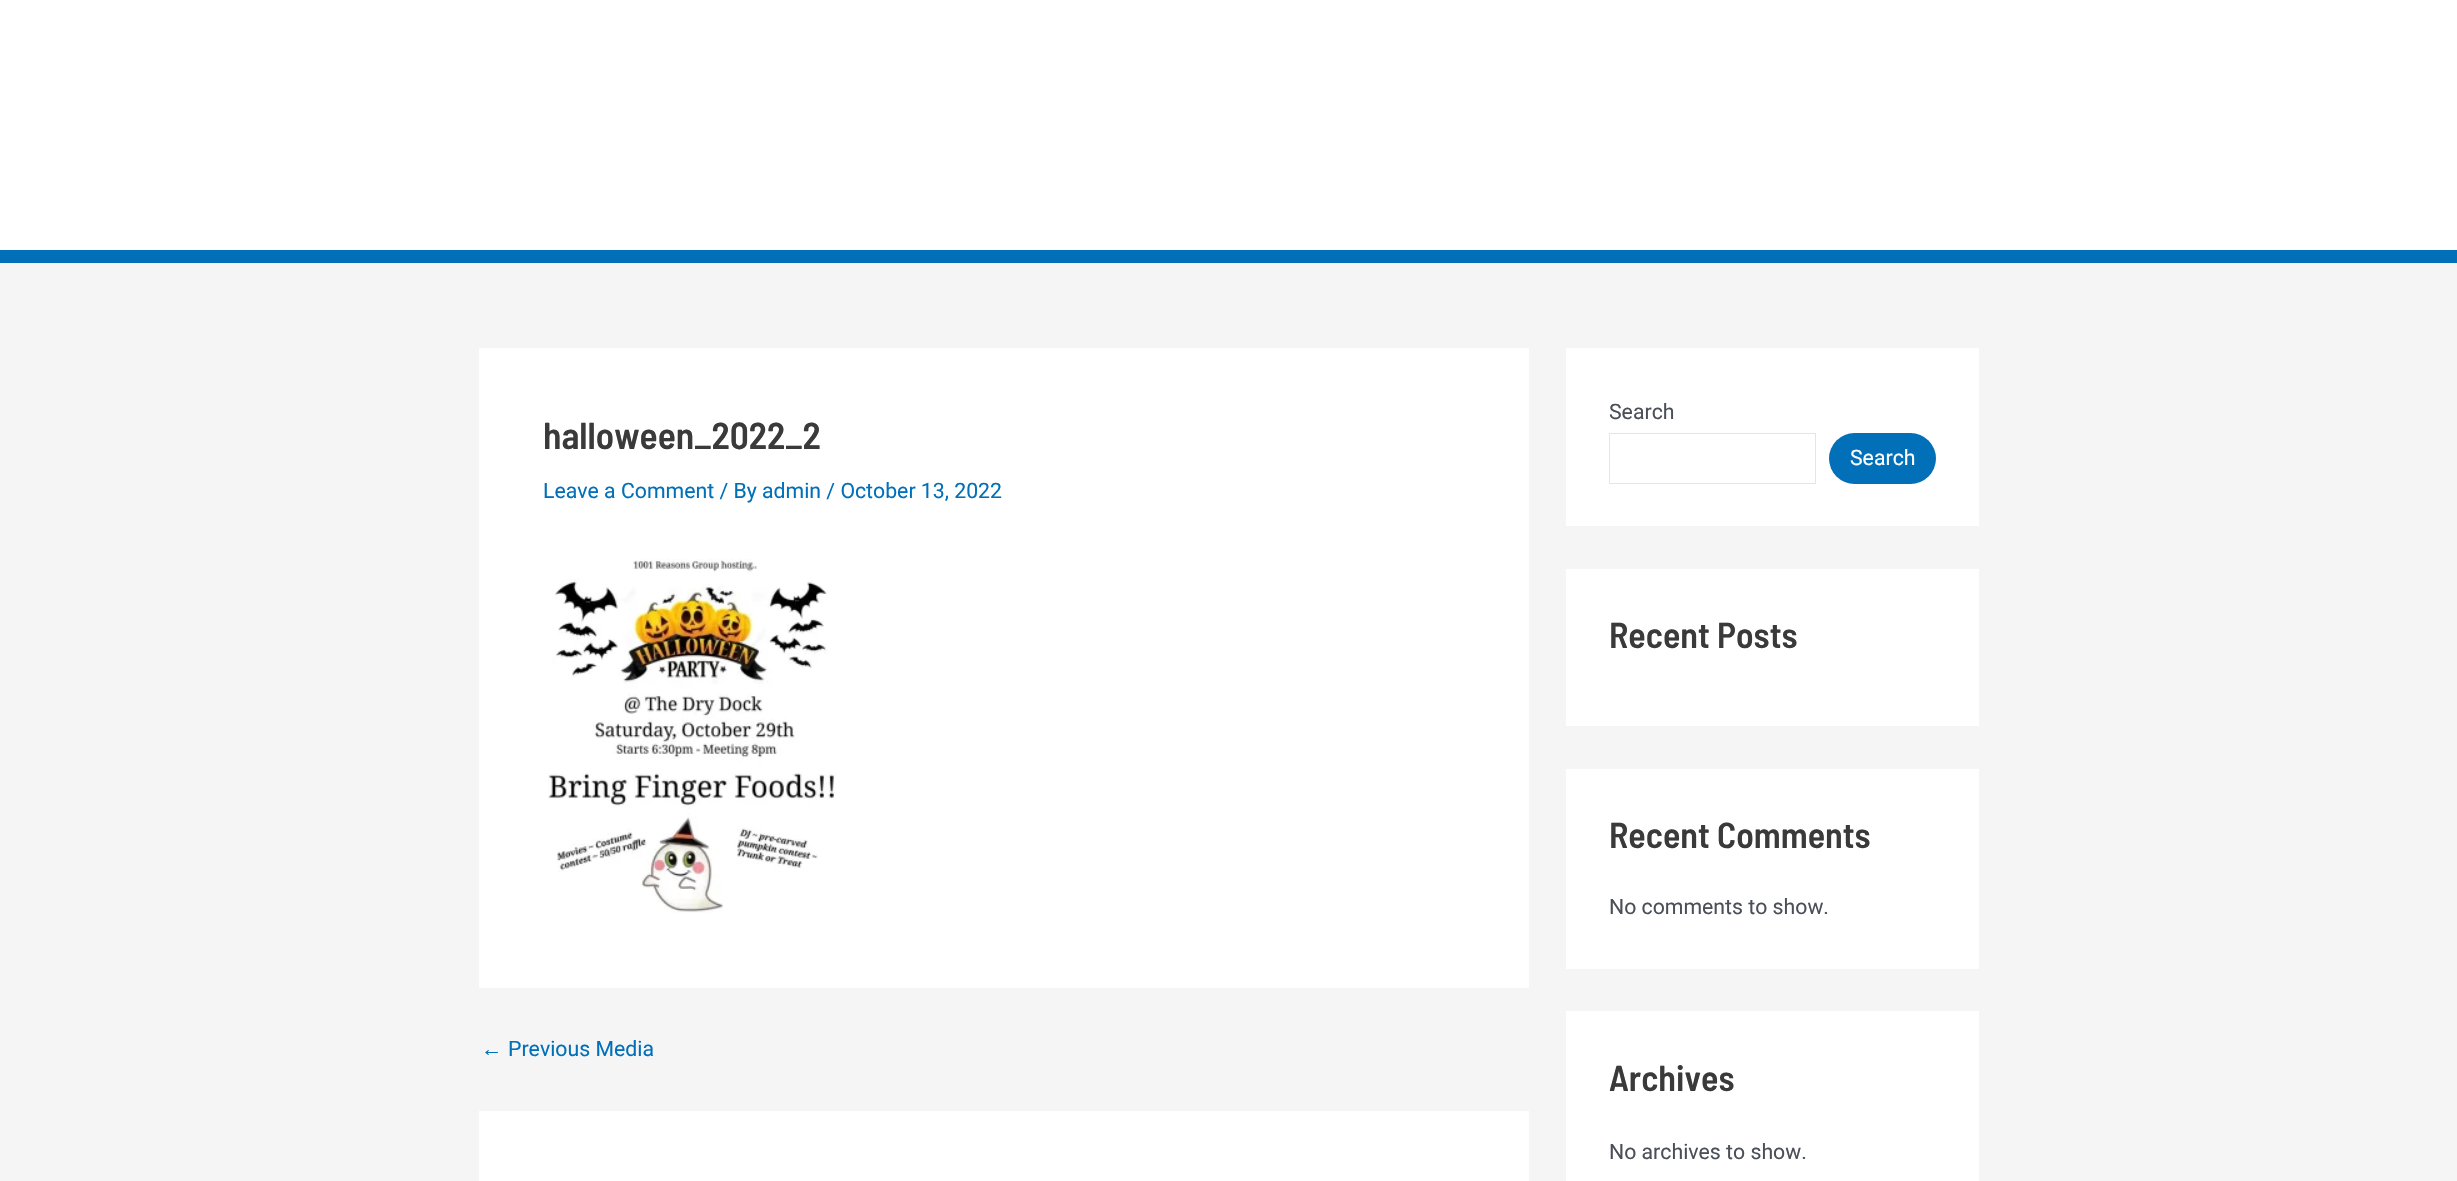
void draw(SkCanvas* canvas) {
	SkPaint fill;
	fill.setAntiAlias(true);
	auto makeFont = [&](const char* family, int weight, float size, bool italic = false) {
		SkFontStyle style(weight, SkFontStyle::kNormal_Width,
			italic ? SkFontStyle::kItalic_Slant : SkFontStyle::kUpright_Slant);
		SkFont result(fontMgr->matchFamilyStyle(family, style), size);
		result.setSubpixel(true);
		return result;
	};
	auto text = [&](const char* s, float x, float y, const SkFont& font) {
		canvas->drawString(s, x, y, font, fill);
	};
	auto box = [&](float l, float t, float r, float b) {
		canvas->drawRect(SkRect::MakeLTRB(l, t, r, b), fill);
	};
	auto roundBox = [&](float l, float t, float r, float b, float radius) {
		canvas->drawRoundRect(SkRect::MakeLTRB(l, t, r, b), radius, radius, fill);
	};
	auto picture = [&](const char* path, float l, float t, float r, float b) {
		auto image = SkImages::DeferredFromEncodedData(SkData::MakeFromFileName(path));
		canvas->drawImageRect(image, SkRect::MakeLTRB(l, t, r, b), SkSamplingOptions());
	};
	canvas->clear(0xFFF5F5F5);
	fill.setColor(0xFFFFFFFF);
	box(0, 0, 2457, 250);
	fill.setColor(0xFF0170B9);
	box(0, 250, 2457, 263);
	fill.setColor(0xFFFFFFFF);
	box(479, 348, 1529, 988);
	picture("image0.png", 548, 559, 836, 913);
	box(479, 1111, 1529, 1181);
	box(1566, 348, 1979, 526);
	fill.setStyle(SkPaint::kStroke_Style);
	fill.setStrokeWidth(1);
	fill.setColor(0xFFE5E5E5);
	canvas->drawRect(SkRect::MakeLTRB(1609.5f, 433.5f, 1815.5f, 483.5f), fill);
	fill.setStyle(SkPaint::kFill_Style);
	fill.setColor(0xFF0170B9);
	roundBox(1829, 433, 1936, 484, 25.5f);
	fill.setColor(0xFFFFFFFF);
	box(1566, 569, 1979, 726);
	box(1566, 769, 1979, 969);
	box(1566, 1011, 1979, 1181);
	auto font1 = makeFont("Barlow Semi Condensed", 600, 37.5f);
	fill.setColor(0xFF3A3A3A);
	text("halloween_2022_2", 543, 449, font1);
	auto font2 = makeFont("Roboto", 400, 21.25f);
	fill.setColor(0xFF0170B9);
	text("Leave a Comment / By admin / October 13, 2022", 543, 498, font2);
	auto font3 = makeFont("Liberation Sans", 400, 21.25f);
	text("←", 481, 1056, font3);
	text("Previous Media", 508, 1056, font2);
	fill.setColor(0xFF4B4F58);
	text("Search", 1609, 419, font2);
	fill.setColor(0xFFFFFFFF);
	text("Search", 1850, 465, font2);
	auto font4 = makeFont("Barlow Semi Condensed", 600, 36);
	fill.setColor(0xFF3A3A3A);
	text("Recent Posts", 1609, 648, font4);
	text("Recent Comments", 1609, 848, font4);
	fill.setColor(0xFF4B4F58);
	text("No comments to show.", 1609, 914, font2);
	fill.setColor(0xFF3A3A3A);
	text("Archives", 1609, 1091, font4);
	fill.setColor(0xFF4B4F58);
	text("No archives to show.", 1609, 1159, font2);
}
